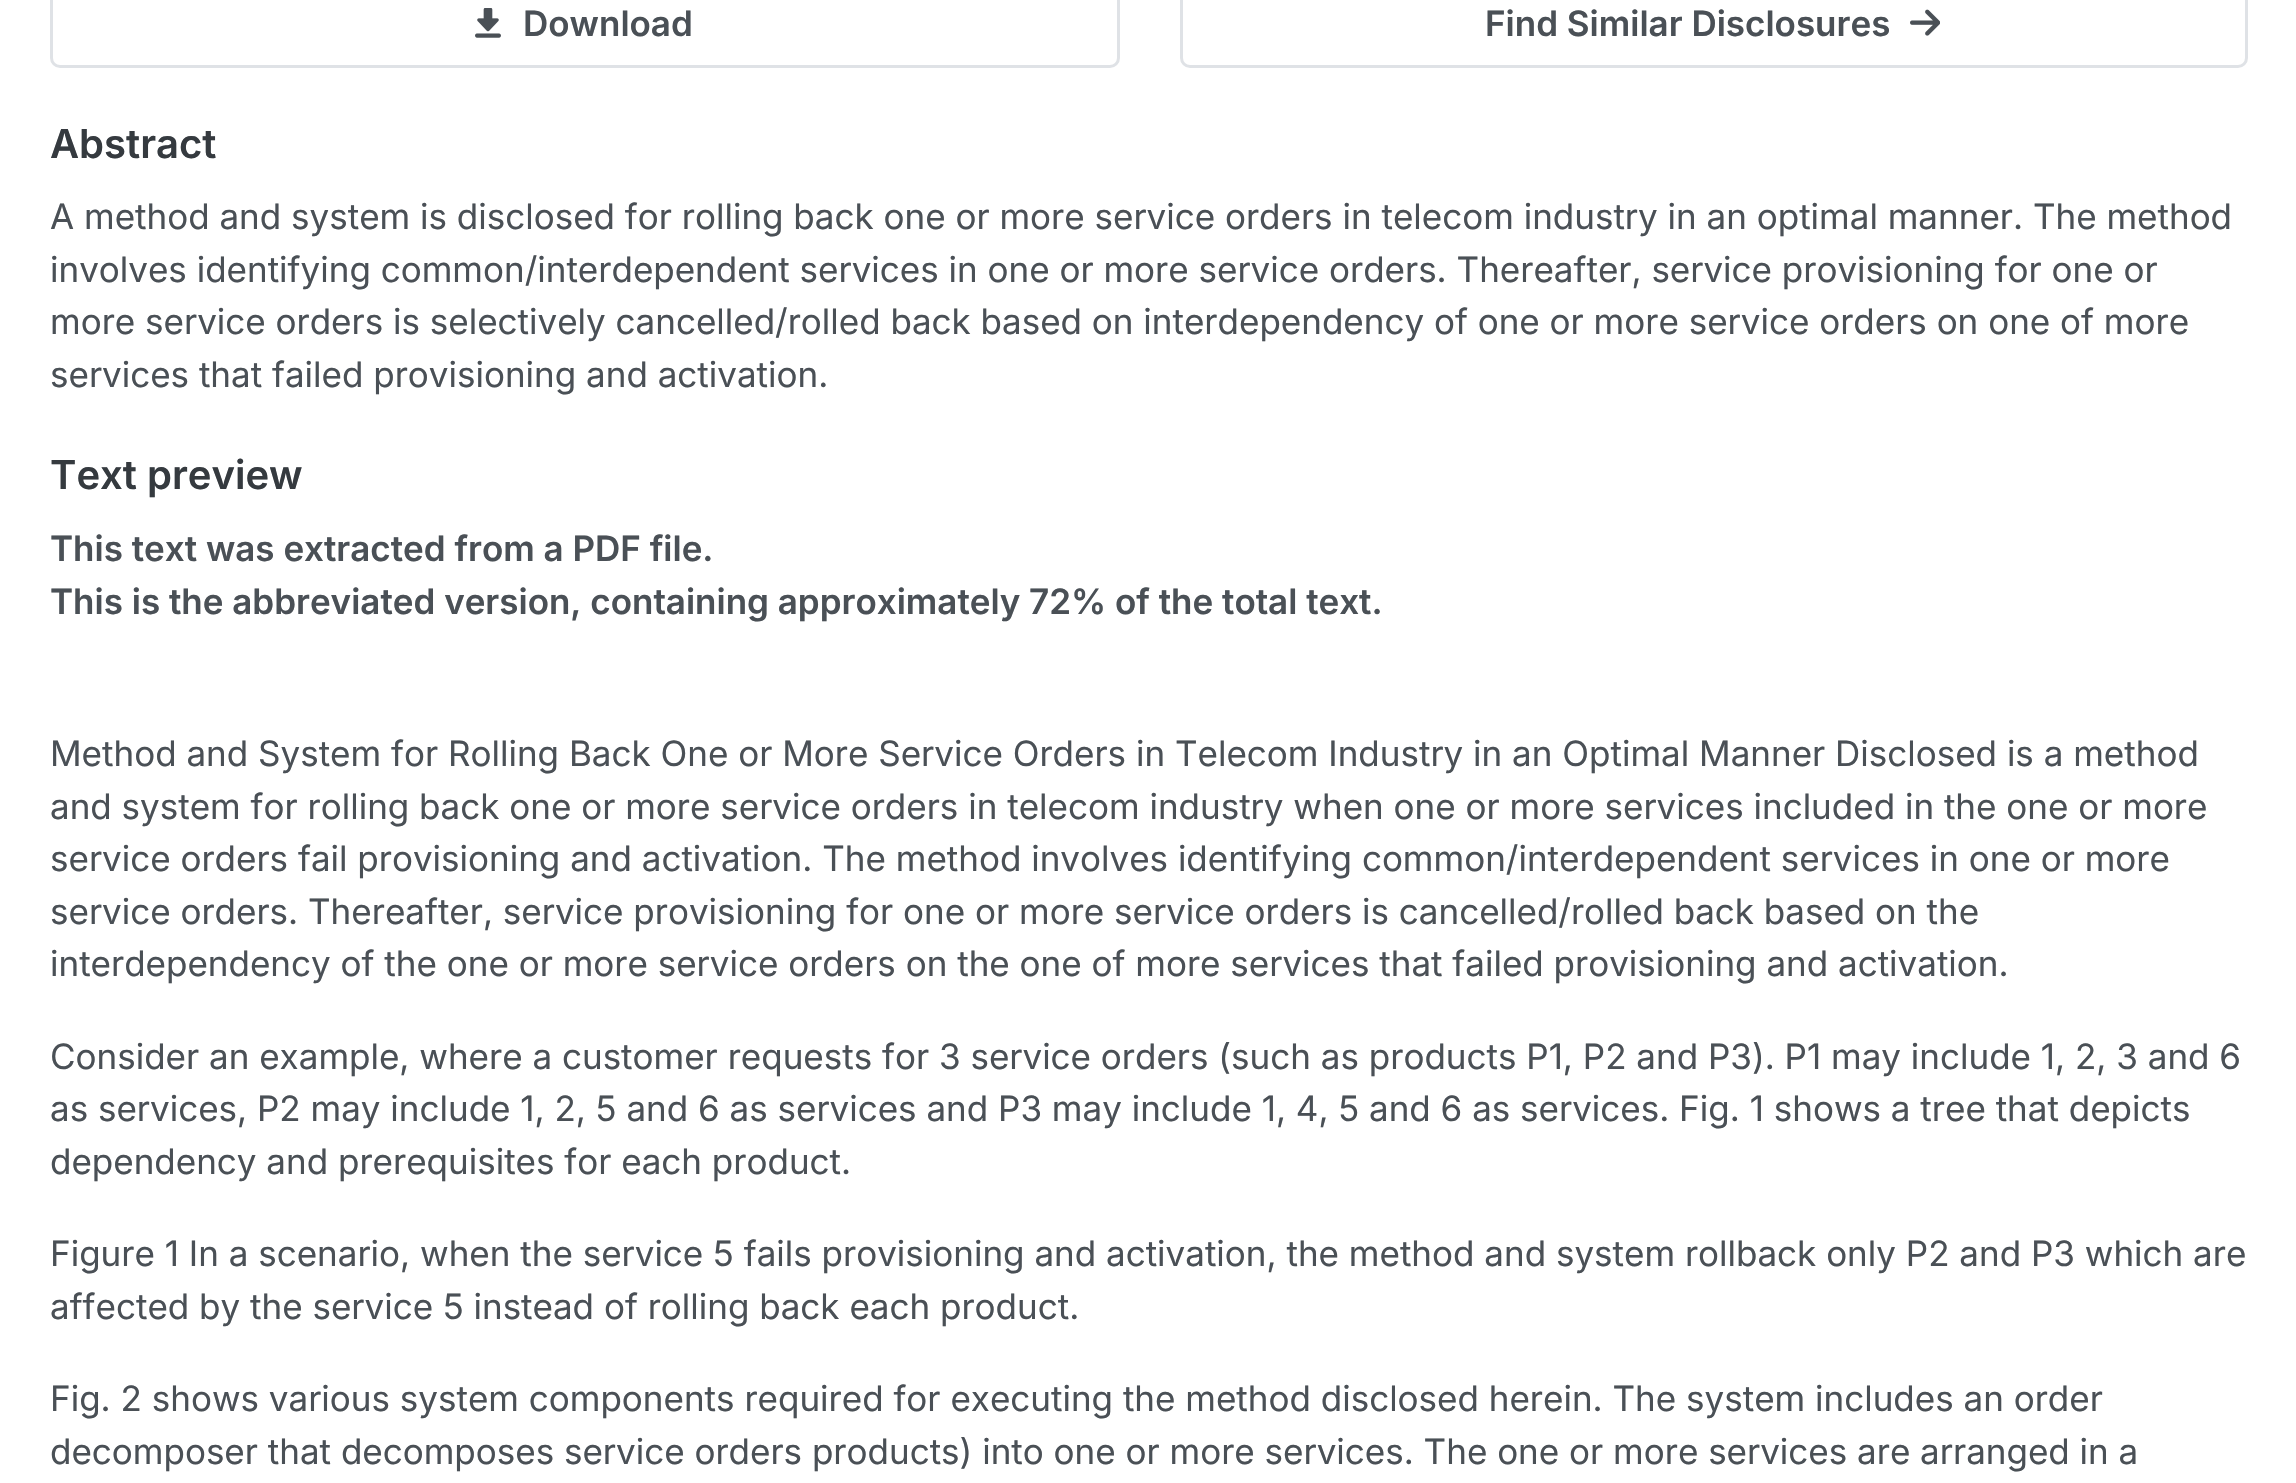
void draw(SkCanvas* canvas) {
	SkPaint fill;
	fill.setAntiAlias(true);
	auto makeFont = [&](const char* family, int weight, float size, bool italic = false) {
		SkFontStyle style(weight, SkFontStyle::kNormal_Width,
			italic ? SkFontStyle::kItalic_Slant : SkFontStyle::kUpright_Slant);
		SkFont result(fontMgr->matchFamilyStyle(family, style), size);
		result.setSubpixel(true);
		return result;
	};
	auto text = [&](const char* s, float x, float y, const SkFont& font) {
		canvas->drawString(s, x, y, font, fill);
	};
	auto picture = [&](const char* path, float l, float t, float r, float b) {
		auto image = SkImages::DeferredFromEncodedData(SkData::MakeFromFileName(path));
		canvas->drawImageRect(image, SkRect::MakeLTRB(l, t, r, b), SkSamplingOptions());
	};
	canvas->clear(0xFFFFFFFF);
	fill.setStyle(SkPaint::kStroke_Style);
	fill.setStrokeWidth(3);
	fill.setColor(0xFFDFE2E6);
	canvas->drawRoundRect(SkRect::MakeLTRB(51.5f, -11.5f, 1118.5f, 66.5f), 8.5f, 8.5f, fill);
	picture("image0.png", 475, 8, 501, 38);
	canvas->drawRoundRect(SkRect::MakeLTRB(1181.5f, -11.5f, 2246.5f, 66.5f), 8.5f, 8.5f, fill);
	picture("image1.png", 1910, 9, 1940, 36);
	auto font1 = makeFont("Inter", 600, 35);
	fill.setStyle(SkPaint::kFill_Style);
	fill.setColor(0xFF4A5056);
	text("Download", 523, 36, font1);
	text("Find Similar Disclosures", 1485, 36, font1);
	auto font2 = makeFont("Inter", 600, 40);
	fill.setColor(0xFF353A3F);
	text("Abstract", 50, 158, font2);
	auto font3 = makeFont("Inter", 400, 35);
	fill.setColor(0xFF4A5056);
	text("A method and system is disclosed for rolling back one or more service orders in telecom industry in an optimal manner. The method", 50, 229, font3);
	text("involves identifying common/interdependent services in one or more service orders. Thereafter, service provisioning for one or", 50, 282, font3);
	text("more service orders is selectively cancelled/rolled back based on interdependency of one or more service orders on one of more", 50, 334, font3);
	text("services that failed provisioning and activation.", 50, 387, font3);
	fill.setColor(0xFF353A3F);
	text("Text preview", 50, 489, font2);
	fill.setColor(0xFF4A5056);
	text("This text was extracted from a PDF file.", 50, 561, font1);
	text("This is the abbreviated version, containing approximately 72% of the total text.", 50, 614, font1);
	text("Method and System for Rolling Back One or More Service Orders in Telecom Industry in an Optimal Manner Disclosed is a method", 50, 766, font3);
	text("and system for rolling back one or more service orders in telecom industry when one or more services included in the one or more", 50, 819, font3);
	text("service orders fail provisioning and activation. The method involves identifying common/interdependent services in one or more", 50, 871, font3);
	text("service orders. Thereafter, service provisioning for one or more service orders is cancelled/rolled back based on the", 50, 924, font3);
	text("interdependency of the one or more service orders on the one of more services that failed provisioning and activation.", 50, 976, font3);
	text("Consider an example, where a customer requests for 3 service orders (such as products P1, P2 and P3). P1 may include 1, 2, 3 and 6", 50, 1069, font3);
	text("as services, P2 may include 1, 2, 5 and 6 as services and P3 may include 1, 4, 5 and 6 as services. Fig. 1 shows a tree that depicts", 50, 1121, font3);
	text("dependency and prerequisites for each product.", 50, 1174, font3);
	text("Figure 1 In a scenario, when the service 5 fails provisioning and activation, the method and system rollback only P2 and P3 which are", 50, 1266, font3);
	text("affected by the service 5 instead of rolling back each product.", 50, 1319, font3);
	text("Fig. 2 shows various system components required for executing the method disclosed herein. The system includes an order", 50, 1411, font3);
	text("decomposer that decomposes service orders products) into one or more services. The one or more services are arranged in a", 50, 1464, font3);
}
